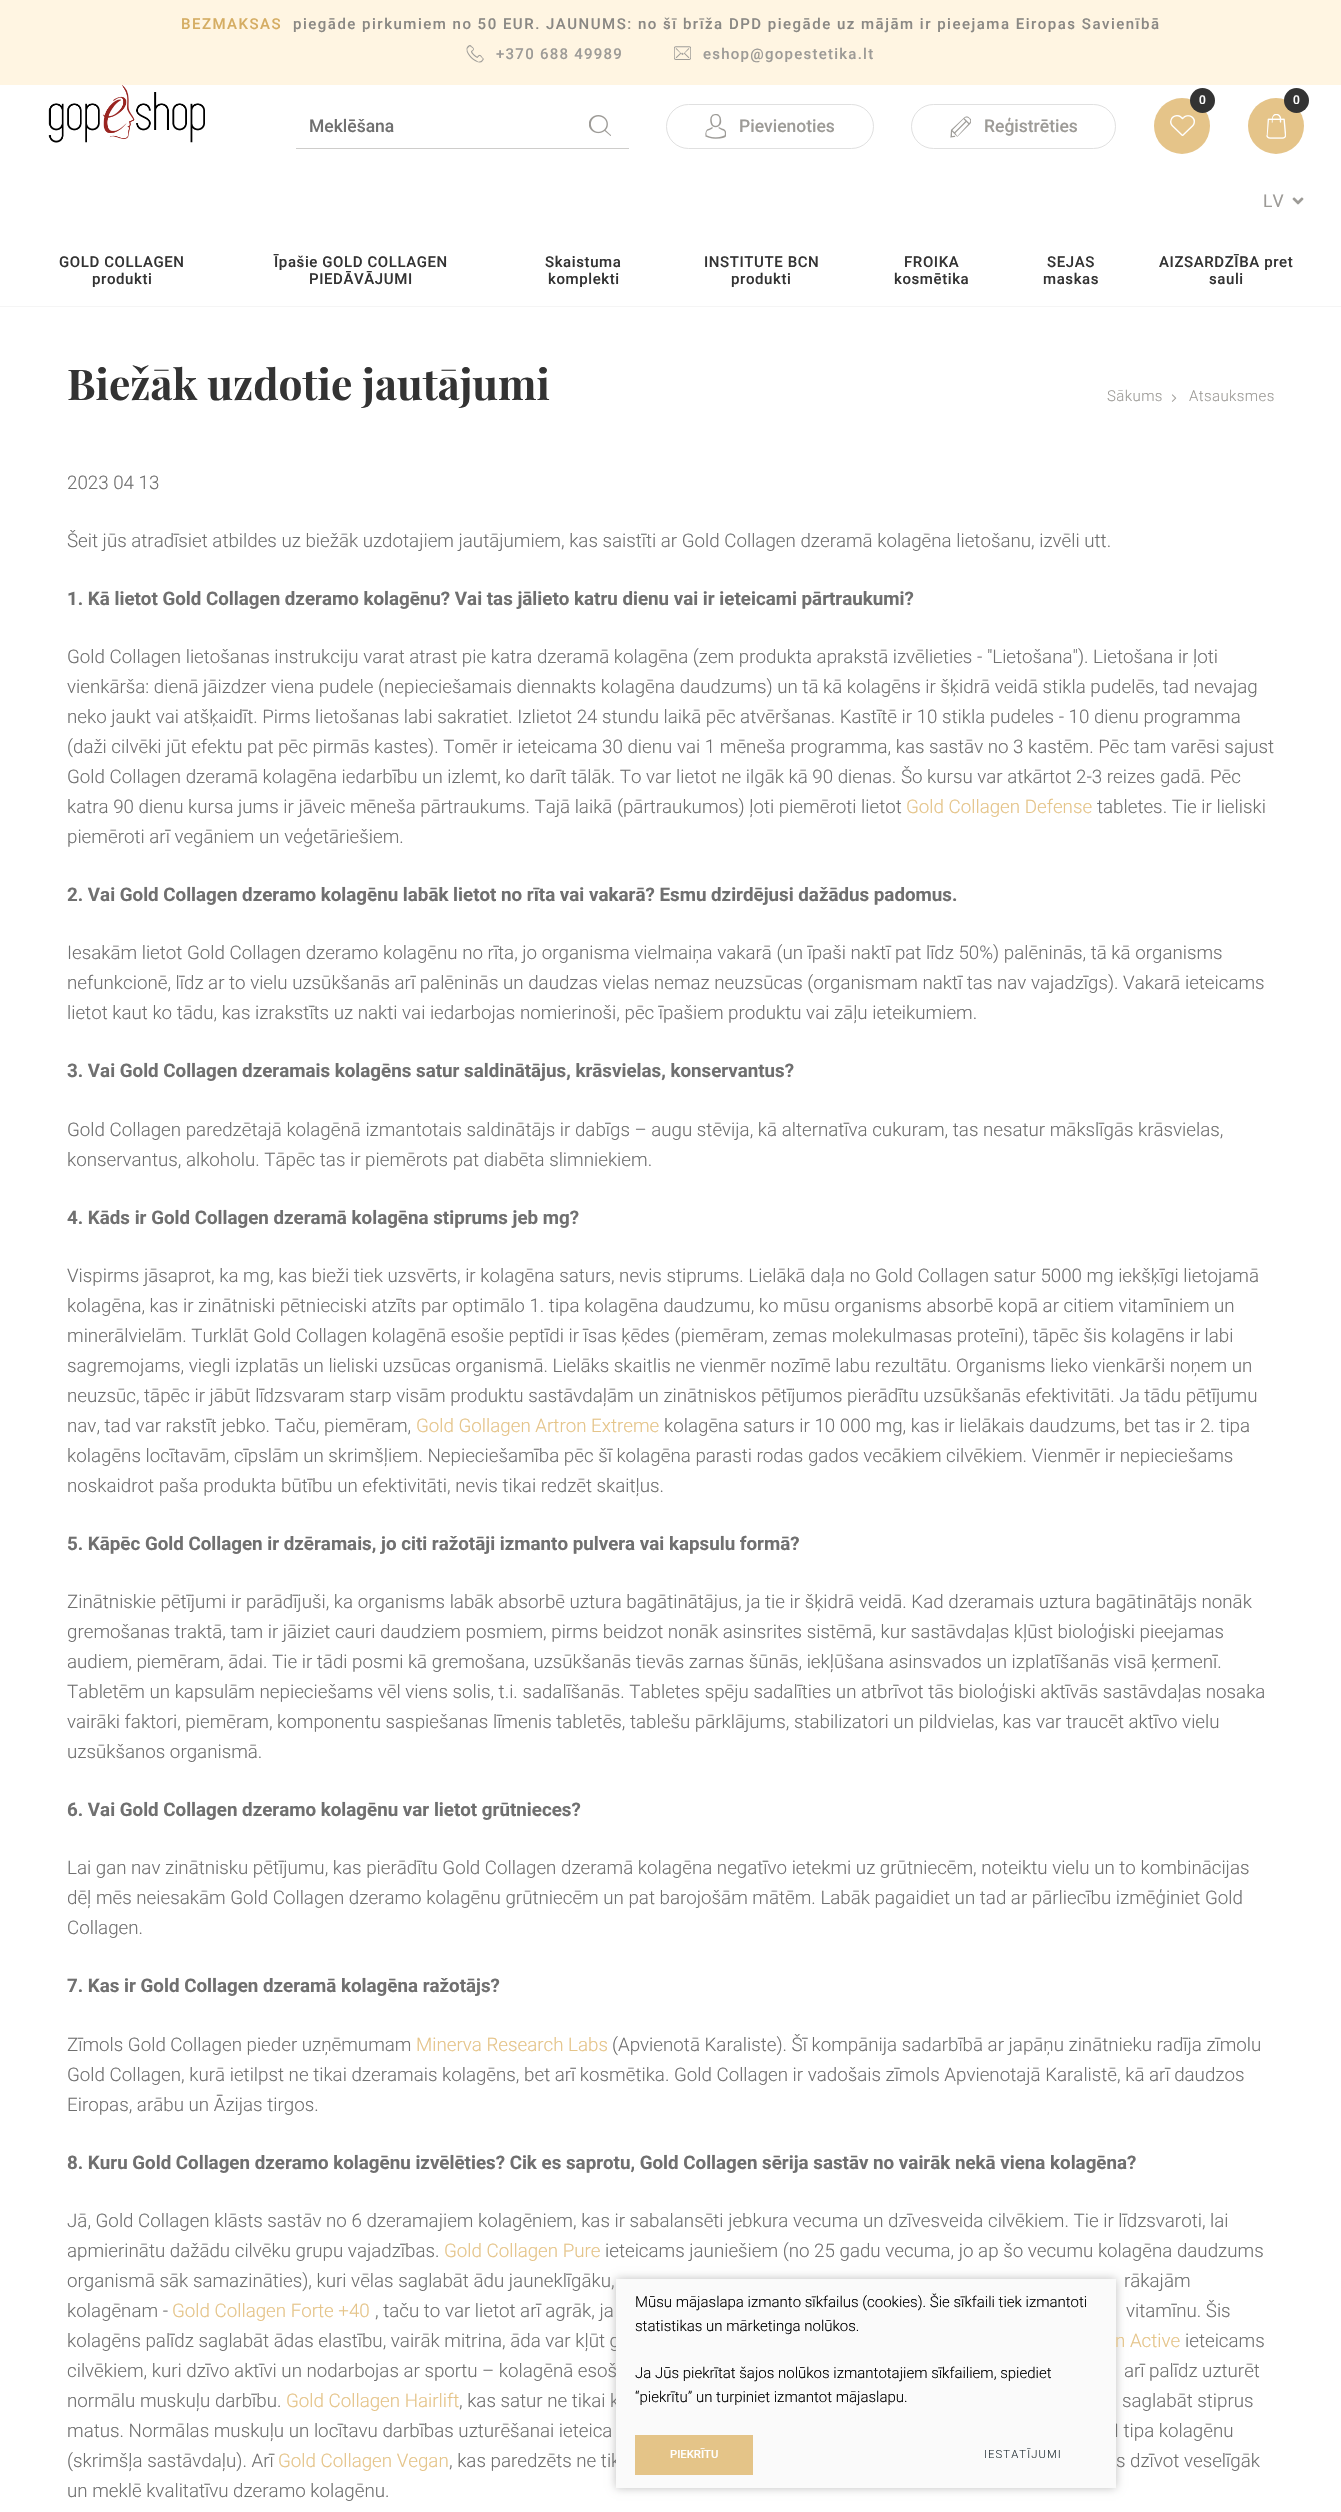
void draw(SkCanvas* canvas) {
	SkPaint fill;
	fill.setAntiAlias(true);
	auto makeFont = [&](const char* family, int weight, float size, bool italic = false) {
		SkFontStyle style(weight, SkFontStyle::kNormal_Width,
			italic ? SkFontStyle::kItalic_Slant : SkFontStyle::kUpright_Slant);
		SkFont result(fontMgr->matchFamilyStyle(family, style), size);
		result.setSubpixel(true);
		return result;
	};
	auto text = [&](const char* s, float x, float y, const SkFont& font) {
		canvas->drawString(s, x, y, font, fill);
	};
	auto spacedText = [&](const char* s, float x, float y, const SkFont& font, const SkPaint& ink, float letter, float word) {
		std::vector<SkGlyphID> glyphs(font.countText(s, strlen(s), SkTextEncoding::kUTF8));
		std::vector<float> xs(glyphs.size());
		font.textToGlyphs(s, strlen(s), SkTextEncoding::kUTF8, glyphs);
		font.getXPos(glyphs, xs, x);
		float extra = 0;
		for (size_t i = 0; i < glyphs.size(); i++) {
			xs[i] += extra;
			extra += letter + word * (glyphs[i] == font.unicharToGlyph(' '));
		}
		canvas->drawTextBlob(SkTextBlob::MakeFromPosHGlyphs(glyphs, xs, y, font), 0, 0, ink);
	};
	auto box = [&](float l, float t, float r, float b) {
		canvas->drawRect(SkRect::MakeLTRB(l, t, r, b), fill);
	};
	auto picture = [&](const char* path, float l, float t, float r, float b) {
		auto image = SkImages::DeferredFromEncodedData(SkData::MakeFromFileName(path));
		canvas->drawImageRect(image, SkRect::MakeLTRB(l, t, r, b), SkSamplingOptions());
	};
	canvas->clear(0xFFFFFFFF);
	fill.setColor(0xFFF5F5F5);
	box(0, 306, 1341, 307);
	fill.setColor(0xFFFFF5E2);
	box(0, 0, 1341, 85);
	picture("image0.png", 466, 45, 484, 63);
	picture("image1.png", 674, 46, 691, 60);
	fill.setColor(0xFFE5C489);
	canvas->drawCircle(1182, 126, 28, fill);
	fill.setColor(0xFF333333);
	canvas->drawCircle(1202.5f, 100.5f, 12.5f, fill);
	picture("image2.png", 1170, 115, 1195, 136);
	fill.setColor(0xFFE5C489);
	canvas->drawCircle(1276, 126, 28, fill);
	fill.setColor(0xFF333333);
	canvas->drawCircle(1296.5f, 100.5f, 12.5f, fill);
	picture("image3.png", 1266, 114, 1286, 139);
	fill.setColor(0xFFCECDCB);
	box(296, 148, 629, 149);
	picture("image4.png", 589, 115, 611, 136);
	fill.setStyle(SkPaint::kStroke_Style);
	fill.setStrokeWidth(1);
	fill.setColor(0xFFE0E0E0);
	canvas->drawRoundRect(SkRect::MakeLTRB(666.5f, 104.5f, 873.5f, 148.5f), 22, 22, fill);
	picture("image5.png", 705, 114, 726, 139);
	canvas->drawRoundRect(SkRect::MakeLTRB(911.5f, 104.5f, 1115.5f, 148.5f), 22, 22, fill);
	picture("image6.png", 950, 116, 971, 138);
	picture("image7.png", 1292, 197, 1304, 205);
	picture("image8.png", 48, 85, 205, 143);
	picture("image9.png", 1171, 394, 1177, 402);
	fill.setStyle(SkPaint::kFill_Style);
	fill.setColor(0x40000000);
	fill.setMaskFilter(SkMaskFilter::MakeBlur(kNormal_SkBlurStyle, 4.5f));
	canvas->drawRect(SkRect::MakeLTRB(616, 2279, 1116, 2488), fill);
	fill.setMaskFilter(nullptr);
	auto font1 = makeFont("Roboto", 500, 15);
	fill.setColor(0xFFD5AD63);
	spacedText("BEZMAKSAS", 181, 29, font1, fill, 1.5f, 0);
	fill.setColor(0xFF8A8884);
	spacedText("piegāde pirkumiem no 50 EUR. JAUNUMS: no šī brīža DPD piegāde uz mājām ir pieejama Eiropas Savienībā", 293, 29, font1, fill, 1.5f, 0);
	fill.setColor(0xFF9D9B97);
	spacedText("+370 688 49989", 496, 59, font1, fill, 1.25f, 0);
	spacedText("eshop@gopestetika.lt", 703, 59, font1, fill, 1.25f, 0);
	auto font2 = makeFont("Roboto", 500, 12);
	fill.setColor(0xFFFFFFFF);
	text("0", 1199, 104, font2);
	text("0", 1293, 104, font2);
	auto font3 = makeFont("Roboto", 500, 17.5f);
	fill.setColor(0xFF707070);
	text("Meklēšana", 309, 132, font3);
	fill.setColor(0xFF9D9B97);
	text("Pievienoties", 739, 132, font3);
	text("Reģistrēties", 984, 132, font3);
	auto font4 = makeFont("Roboto", 400, 17.5f);
	text("LV", 1263, 207, font4);
	fill.setColor(0xFF333333);
	spacedText("GOLD COLLAGEN", 59, 267, font1, fill, 0.6f, 0);
	spacedText("produkti", 92, 284, font1, fill, 0.6f, 0);
	spacedText("Īpašie GOLD COLLAGEN", 274, 267, font1, fill, 0.6f, 0);
	spacedText("PIEDĀVĀJUMI", 309, 284, font1, fill, 0.6f, 0);
	spacedText("Skaistuma", 545, 267, font1, fill, 0.6f, 0);
	spacedText("komplekti", 548, 284, font1, fill, 0.6f, 0);
	spacedText("INSTITUTE BCN", 704, 267, font1, fill, 0.6f, 0);
	spacedText("produkti", 731, 284, font1, fill, 0.6f, 0);
	spacedText("FROIKA", 904, 267, font1, fill, 0.6f, 0);
	spacedText("kosmētika", 894, 284, font1, fill, 0.6f, 0);
	spacedText("SEJAS", 1047, 267, font1, fill, 0.6f, 0);
	spacedText("maskas", 1043, 284, font1, fill, 0.6f, 0);
	spacedText("AIZSARDZĪBA pret", 1159, 267, font1, fill, 0.6f, 0);
	spacedText("sauli", 1209, 284, font1, fill, 0.6f, 0);
	auto font5 = makeFont("Playfair Display", 700, 42.5f);
	text("Biežāk uzdotie jautājumi", 67, 400, font5);
	auto font6 = makeFont("Roboto", 300, 15);
	fill.setColor(0xFF9D9B97);
	spacedText("Sākums", 1107, 401, font6, fill, 0.4f, 0);
	spacedText("Atsauksmes", 1189, 401, font6, fill, 0.4f, 0);
	auto font7 = makeFont("Roboto", 300, 18.75f);
	fill.setColor(0xFF707070);
	text("2023 04 13", 67, 489, font7);
	text("Šeit jūs atradīsiet atbildes uz biežāk uzdotajiem jautājumiem, kas saistīti ar Gold Collagen dzeramā kolagēna lietošanu, izvēli utt.", 67, 547, font7);
	auto font8 = makeFont("Roboto", 700, 18.75f);
	text("1. Kā lietot Gold Collagen dzeramo kolagēnu? Vai tas jālieto katru dienu vai ir ieteicami pārtraukumi?", 67, 605, font8);
	text("Gold Collagen lietošanas instrukciju varat atrast pie katra dzeramā kolagēna (zem produkta aprakstā izvēlieties - \"Lietošana\"). Lietošana ir ļoti", 67, 663, font7);
	text("vienkārša: dienā jāizdzer viena pudele (nepieciešamais diennakts kolagēna daudzums) un tā kā kolagēns ir šķidrā veidā stikla pudelēs, tad nevajag", 67, 693, font7);
	text("neko jaukt vai atšķaidīt. Pirms lietošanas labi sakratiet. Izlietot 24 stundu laikā pēc atvēršanas. Kastītē ir 10 stikla pudeles - 10 dienu programma", 67, 723, font7);
	text("(daži cilvēki jūt efektu pat pēc pirmās kastes). Tomēr ir ieteicama 30 dienu vai 1 mēneša programma, kas sastāv no 3 kastēm. Pēc tam varēsi sajust", 67, 753, font7);
	text("Gold Collagen dzeramā kolagēna iedarbību un izlemt, ko darīt tālāk. To var lietot ne ilgāk kā 90 dienas. Šo kursu var atkārtot 2-3 reizes gadā. Pēc", 67, 783, font7);
	text("katra 90 dienu kursa jums ir jāveic mēneša pārtraukums. Tajā laikā (pārtraukumos) ļoti piemēroti lietot", 67, 813, font7);
	fill.setColor(0xFFE5C489);
	text("Gold Collagen Defense", 906, 813, font7);
	fill.setColor(0xFF707070);
	text("tabletes. Tie ir lieliski", 1097, 813, font7);
	text("piemēroti arī vegāniem un veģetāriešiem.", 67, 843, font7);
	text("2. Vai Gold Collagen dzeramo kolagēnu labāk lietot no rīta vai vakarā? Esmu dzirdējusi dažādus padomus.", 67, 901, font8);
	text("Iesakām lietot Gold Collagen dzeramo kolagēnu no rīta, jo organisma vielmaiņa vakarā (un īpaši naktī pat līdz 50%) palēninās, tā kā organisms", 67, 959, font7);
	text("nefunkcionē, līdz ar to vielu uzsūkšanās arī palēninās un daudzas vielas nemaz neuzsūcas (organismam naktī tas nav vajadzīgs). Vakarā ieteicams", 67, 989, font7);
	text("lietot kaut ko tādu, kas izrakstīts uz nakti vai iedarbojas nomierinoši, pēc īpašiem produktu vai zāļu ieteikumiem.", 67, 1019, font7);
	text("3. Vai Gold Collagen dzeramais kolagēns satur saldinātājus, krāsvielas, konservantus?", 67, 1077, font8);
	text("Gold Collagen paredzētajā kolagēnā izmantotais saldinātājs ir dabīgs – augu stēvija, kā alternatīva cukuram, tas nesatur mākslīgās krāsvielas,", 67, 1136, font7);
	text("konservantus, alkoholu. Tāpēc tas ir piemērots pat diabēta slimniekiem.", 67, 1166, font7);
	text("4. Kāds ir Gold Collagen dzeramā kolagēna stiprums jeb mg?", 67, 1224, font8);
	text("Vispirms jāsaprot, ka mg, kas bieži tiek uzsvērts, ir kolagēna saturs, nevis stiprums. Lielākā daļa no Gold Collagen satur 5000 mg iekšķīgi lietojamā", 67, 1282, font7);
	text("kolagēna, kas ir zinātniski pētnieciski atzīts par optimālo 1. tipa kolagēna daudzumu, ko mūsu organisms absorbē kopā ar citiem vitamīniem un", 67, 1312, font7);
	text("minerālvielām. Turklāt Gold Collagen kolagēnā esošie peptīdi ir īsas ķēdes (piemēram, zemas molekulmasas proteīni), tāpēc šis kolagēns ir labi", 67, 1342, font7);
	text("sagremojams, viegli izplatās un lieliski uzsūcas organismā. Lielāks skaitlis ne vienmēr nozīmē labu rezultātu. Organisms lieko vienkārši noņem un", 67, 1372, font7);
	text("neuzsūc, tāpēc ir jābūt līdzsvaram starp visām produktu sastāvdaļām un zinātniskos pētījumos pierādītu uzsūkšanās efektivitāti. Ja tādu pētījumu", 67, 1402, font7);
	text("nav, tad var rakstīt jebko. Taču, piemēram,", 67, 1432, font7);
	fill.setColor(0xFFE5C489);
	text("Gold Gollagen Artron Extreme", 416, 1432, font7);
	fill.setColor(0xFF707070);
	text("kolagēna saturs ir 10 000 mg, kas ir lielākais daudzums, bet tas ir 2. tipa", 664, 1432, font7);
	text("kolagēns locītavām, cīpslām un skrimšļiem. Nepieciešamība pēc šī kolagēna parasti rodas gados vecākiem cilvēkiem. Vienmēr ir nepieciešams", 67, 1462, font7);
	text("noskaidrot paša produkta būtību un efektivitāti, nevis tikai redzēt skaitļus.", 67, 1492, font7);
	text("5. Kāpēc Gold Collagen ir dzēramais, jo citi ražotāji izmanto pulvera vai kapsulu formā?", 67, 1550, font8);
	text("Zinātniskie pētījumi ir parādījuši, ka organisms labāk absorbē uztura bagātinātājus, ja tie ir šķidrā veidā. Kad dzeramais uztura bagātinātājs nonāk", 67, 1608, font7);
	text("gremošanas traktā, tam ir jāiziet cauri daudziem posmiem, pirms beidzot nonāk asinsrites sistēmā, kur sastāvdaļas kļūst bioloģiski pieejamas", 67, 1638, font7);
	text("audiem, piemēram, ādai. Tie ir tādi posmi kā gremošana, uzsūkšanās tievās zarnas šūnās, iekļūšana asinsvados un izplatīšanās visā ķermenī.", 67, 1668, font7);
	text("Tabletēm un kapsulām nepieciešams vēl viens solis, t.i. sadalīšanās. Tabletes spēju sadalīties un atbrīvot tās bioloģiski aktīvās sastāvdaļas nosaka", 67, 1698, font7);
	text("vairāki faktori, piemēram, komponentu saspiešanas līmenis tabletēs, tablešu pārklājums, stabilizatori un pildvielas, kas var traucēt aktīvo vielu", 67, 1728, font7);
	text("uzsūkšanos organismā.", 67, 1758, font7);
	text("6. Vai Gold Collagen dzeramo kolagēnu var lietot grūtnieces?", 67, 1816, font8);
	text("Lai gan nav zinātnisku pētījumu, kas pierādītu Gold Collagen dzeramā kolagēna negatīvo ietekmi uz grūtniecēm, noteiktu vielu un to kombinācijas", 67, 1874, font7);
	text("dēļ mēs neiesakām Gold Collagen dzeramo kolagēnu grūtniecēm un pat barojošām mātēm. Labāk pagaidiet un tad ar pārliecību izmēģiniet Gold", 67, 1904, font7);
	text("Collagen.", 67, 1934, font7);
	text("7. Kas ir Gold Collagen dzeramā kolagēna ražotājs?", 67, 1992, font8);
	text("Zīmols Gold Collagen pieder uzņēmumam", 67, 2051, font7);
	fill.setColor(0xFFE5C489);
	text("Minerva Research Labs", 416, 2051, font7);
	fill.setColor(0xFF707070);
	text("(Apvienotā Karaliste). Šī kompānija sadarbībā ar japāņu zinātnieku radīja zīmolu", 612, 2051, font7);
	text("Gold Collagen, kurā ietilpst ne tikai dzeramais kolagēns, bet arī kosmētika. Gold Collagen ir vadošais zīmols Apvienotajā Karalistē, kā arī daudzos", 67, 2081, font7);
	text("Eiropas, arābu un Āzijas tirgos.", 67, 2111, font7);
	text("8. Kuru Gold Collagen dzeramo kolagēnu izvēlēties? Cik es saprotu, Gold Collagen sērija sastāv no vairāk nekā viena kolagēna?", 67, 2169, font8);
	text("Jā, Gold Collagen klāsts sastāv no 6 dzeramajiem kolagēniem, kas ir sabalansēti jebkura vecuma un dzīvesveida cilvēkiem. Tie ir līdzsvaroti, lai", 67, 2227, font7);
	text("apmierinātu dažādu cilvēku grupu vajadzības.", 67, 2257, font7);
	fill.setColor(0xFFE5C489);
	text("Gold Collagen Pure", 444, 2257, font7);
	fill.setColor(0xFF707070);
	text("ieteicams jauniešiem (no 25 gadu vecuma, jo ap šo vecumu kolagēna daudzums", 605, 2257, font7);
	text("organismā sāk samazināties), kuri vēlas saglabāt ādu jauneklīgāku,", 67, 2287, font7);
	text("rākajām", 1124, 2287, font7);
	text("kolagēnam -", 67, 2317, font7);
	fill.setColor(0xFFE5C489);
	text("Gold Collagen Forte +40", 172, 2317, font7);
	fill.setColor(0xFF707070);
	text(", taču to var lietot arī agrāk, ja", 375, 2317, font7);
	text("vitamīnu. Šis", 1126, 2317, font7);
	text("kolagēns palīdz saglabāt ādas elastību, vairāk mitrina, āda var kļūt g", 67, 2347, font7);
	fill.setColor(0xFFE5C489);
	text("n Active", 1115, 2347, font7);
	fill.setColor(0xFF707070);
	text("ieteicams", 1185, 2347, font7);
	text("cilvēkiem, kuri dzīvo aktīvi un nodarbojas ar sportu – kolagēnā esoš", 67, 2377, font7);
	text("arī palīdz uzturēt", 1124, 2377, font7);
	text("normālu muskuļu darbību.", 67, 2407, font7);
	fill.setColor(0xFFE5C489);
	text("Gold Collagen Hairlift", 286, 2407, font7);
	fill.setColor(0xFF707070);
	text(", kas satur ne tikai k", 459, 2407, font7);
	text("saglabāt stiprus", 1122, 2407, font7);
	text("matus. Normālas muskuļu un locītavu darbības uzturēšanai ieteica", 67, 2437, font7);
	text("I tipa kolagēnu", 1114, 2437, font7);
	text("(skrimšļa sastāvdaļu). Arī", 67, 2467, font7);
	fill.setColor(0xFFE5C489);
	text("Gold Collagen Vegan", 278, 2467, font7);
	fill.setColor(0xFF707070);
	text(", kas paredzēts ne tik", 449, 2467, font7);
	text("s dzīvot veselīgāk", 1116, 2467, font7);
	text("un meklē kvalitatīvu dzeramo kolagēnu.", 67, 2497, font7);
	fill.setColor(0xFFFAFAFA);
	box(616, 2279, 1116, 2488);
	fill.setColor(0xFF000000);
	text("Mūsu mājaslapa izmanto sīkfailus (cookies). Šie sīkfaili tiek izmantoti", 635, 2307, font6);
	text("statistikas un mārketinga nolūkos.", 635, 2331, font6);
	text("Ja Jūs piekrītat šajos nolūkos izmantotajiem sīkfailiem, spiediet", 635, 2378, font6);
	text("“piekrītu” un turpiniet izmantot mājaslapu.", 635, 2402, font6);
	fill.setColor(0xFFE4C488);
	box(635, 2435, 753, 2475);
	auto font9 = makeFont("Roboto", 500, 11.25f);
	fill.setColor(0xFFFFFFFF);
	text("PIEKRĪTU", 670, 2458, font9);
	auto font10 = makeFont("Roboto", 300, 11.25f);
	fill.setColor(0xFF263238);
	spacedText("IESTATĪJUMI", 984, 2458, font10, fill, 1.1f, 0);
}
